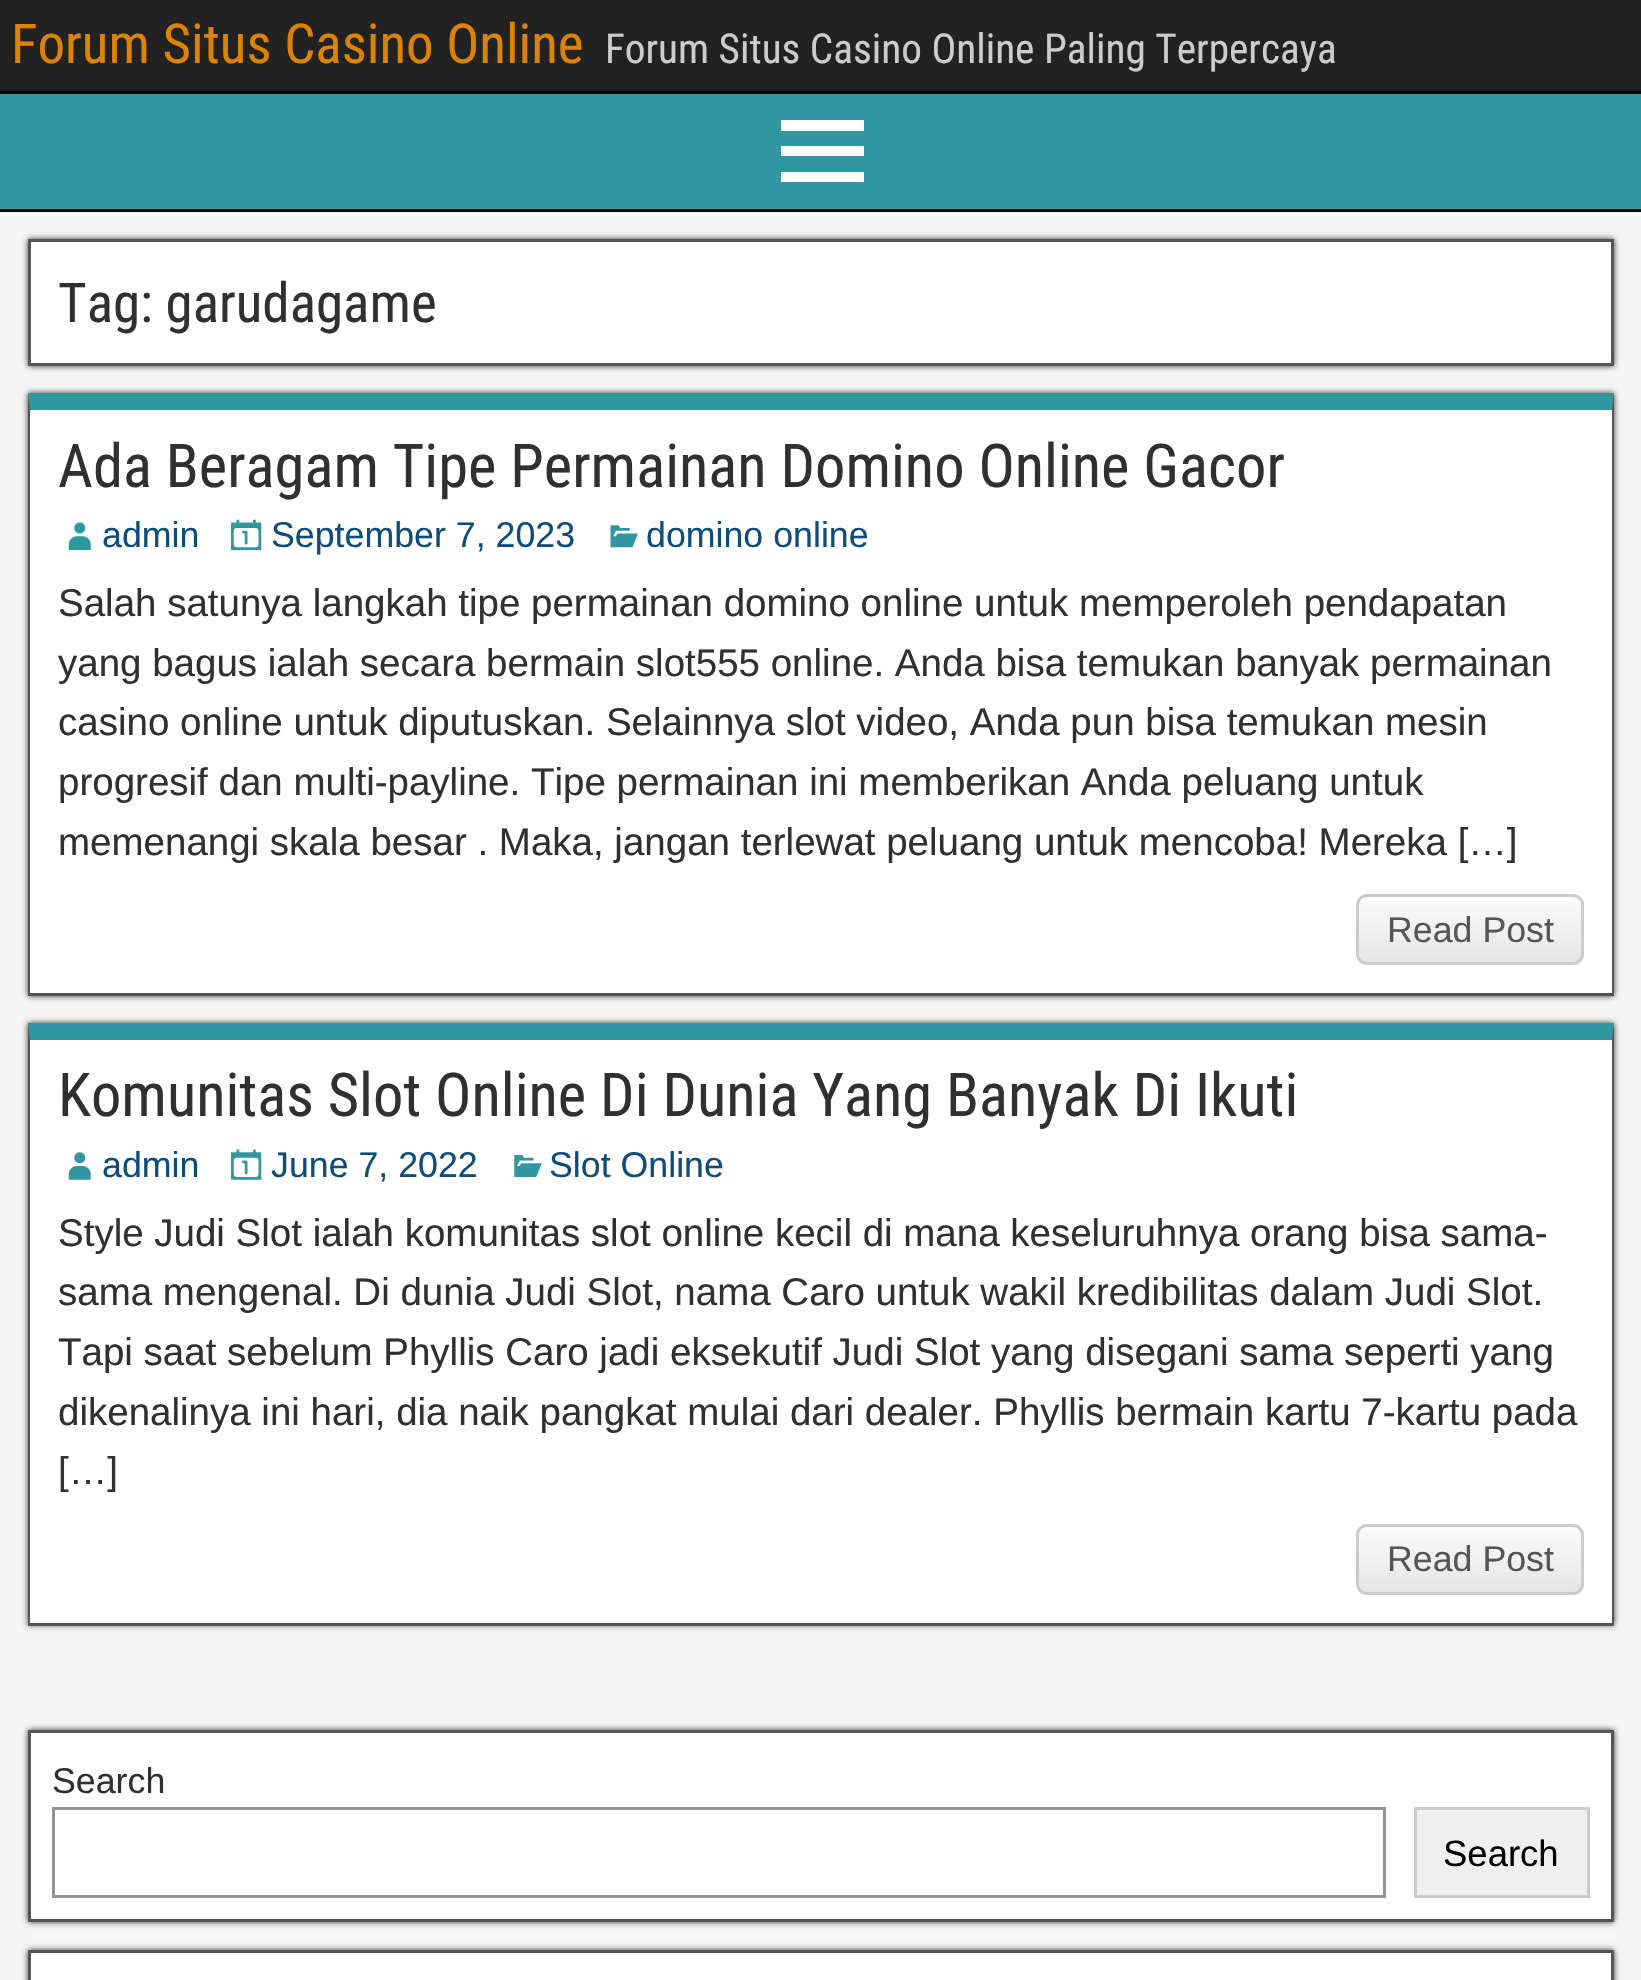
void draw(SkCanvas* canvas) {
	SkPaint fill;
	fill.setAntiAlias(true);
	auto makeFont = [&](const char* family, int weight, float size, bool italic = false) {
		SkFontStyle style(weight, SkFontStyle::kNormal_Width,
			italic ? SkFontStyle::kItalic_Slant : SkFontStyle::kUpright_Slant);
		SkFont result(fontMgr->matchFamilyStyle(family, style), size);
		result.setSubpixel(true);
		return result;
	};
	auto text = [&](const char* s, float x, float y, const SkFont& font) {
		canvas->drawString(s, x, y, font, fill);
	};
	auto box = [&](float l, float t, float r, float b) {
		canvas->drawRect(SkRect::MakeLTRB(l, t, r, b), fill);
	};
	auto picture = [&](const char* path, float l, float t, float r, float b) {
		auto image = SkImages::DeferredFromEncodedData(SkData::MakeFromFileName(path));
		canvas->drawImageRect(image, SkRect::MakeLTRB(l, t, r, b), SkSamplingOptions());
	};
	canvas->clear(0xFF222222);
	fill.setColor(0xFF000000);
	box(0, 91, 1641, 94);
	fill.setColor(0xFF3097A0);
	box(0, 94, 1641, 209);
	fill.setColor(0xFF000000);
	box(0, 209, 1641, 212);
	fill.setColor(0xFFFFFFFF);
	canvas->drawPath(SkPathBuilder().moveTo(781, 182).lineTo(781, 172).lineTo(864, 172).lineTo(864, 182).close().moveTo(781, 120).lineTo(864, 120).lineTo(864, 131).lineTo(781, 131).close().moveTo(781, 156).lineTo(781, 146).lineTo(864, 146).lineTo(864, 156).close().detach(), fill);
	fill.setColor(0xFFF5F5F5);
	box(0, 212, 1641, 1980);
	fill.setColor(0xFF333333);
	fill.setMaskFilter(SkMaskFilter::MakeBlur(kNormal_SkBlurStyle, 3));
	canvas->drawRect(SkRect::MakeLTRB(28, 239, 1614, 366), fill);
	fill.setMaskFilter(nullptr);
	fill.setColor(0xFFFFFFFF);
	canvas->drawRect(SkRect::MakeLTRB(29.5f, 240.5f, 1612.5f, 364.5f), fill);
	fill.setStyle(SkPaint::kStroke_Style);
	fill.setStrokeWidth(3);
	fill.setColor(0xFF555555);
	canvas->drawRect(SkRect::MakeLTRB(29.5f, 240.5f, 1612.5f, 364.5f), fill);
	fill.setStyle(SkPaint::kFill_Style);
	fill.setColor(0xFF333333);
	fill.setMaskFilter(SkMaskFilter::MakeBlur(kNormal_SkBlurStyle, 3));
	canvas->drawRect(SkRect::MakeLTRB(28, 393, 1614, 996), fill);
	fill.setMaskFilter(nullptr);
	fill.setColor(0xFFFFFFFF);
	box(30, 410, 1612, 993);
	fill.setColor(0xFF3097A0);
	canvas->drawPath(SkPathBuilder().moveTo(28, 393).lineTo(1614, 393).lineTo(1612, 410).lineTo(30, 410).close().detach(), fill);
	fill.setColor(0xFF555555);
	canvas->drawPath(SkPathBuilder().moveTo(1614, 393).lineTo(1614, 996).lineTo(1612, 993).lineTo(1612, 410).close().detach(), fill);
	box(28, 993, 1614, 996);
	canvas->drawPath(SkPathBuilder().moveTo(28, 996).lineTo(28, 393).lineTo(30, 410).lineTo(30, 993).close().detach(), fill);
	picture("image0.png", 68, 522, 91, 550);
	picture("image1.png", 231, 519, 262, 550);
	picture("image2.png", 610, 525, 638, 548);
	canvas->save();
	canvas->clipPath(SkPathBuilder().moveTo(1367, 894).lineTo(1573, 894).cubicTo(1579, 894, 1584, 899, 1584, 905).lineTo(1584, 954).cubicTo(1584, 960, 1579, 965, 1573, 965).lineTo(1367, 965).cubicTo(1361, 965, 1356, 960, 1356, 954).lineTo(1356, 905).cubicTo(1356, 899, 1361, 894, 1367, 894).close().detach(), true);
	{
		const SkColor colors[] = {0xFFFBFBFB, 0xFFE5E5E5};
		const float stops[] = {0, 1};
		const SkPoint ends[] = {{1470, 897}, {1470, 963}};
		fill.setShader(SkGradientShader::MakeLinear(ends, colors, stops, 2, SkTileMode::kClamp));
		fill.setAlpha(255);
	}
	box(1356, 897, 1584, 963);
	canvas->restore();
	fill.setStyle(SkPaint::kStroke_Style);
	fill.setShader(nullptr);
	fill.setColor(0xFFCCCCCC);
	canvas->drawRoundRect(SkRect::MakeLTRB(1357.5f, 895.5f, 1582.5f, 963.5f), 9.5f, 9.5f, fill);
	fill.setStyle(SkPaint::kFill_Style);
	fill.setColor(0xFF333333);
	fill.setMaskFilter(SkMaskFilter::MakeBlur(kNormal_SkBlurStyle, 3));
	canvas->drawRect(SkRect::MakeLTRB(28, 1023, 1614, 1625), fill);
	fill.setMaskFilter(nullptr);
	fill.setColor(0xFFFFFFFF);
	box(30, 1040, 1612, 1623);
	fill.setColor(0xFF3097A0);
	canvas->drawPath(SkPathBuilder().moveTo(28, 1023).lineTo(1614, 1023).lineTo(1612, 1040).lineTo(30, 1040).close().detach(), fill);
	fill.setColor(0xFF555555);
	canvas->drawPath(SkPathBuilder().moveTo(1614, 1023).lineTo(1614, 1625).lineTo(1612, 1622).lineTo(1612, 1040).close().detach(), fill);
	box(28, 1623, 1614, 1626);
	canvas->drawPath(SkPathBuilder().moveTo(28, 1625).lineTo(28, 1023).lineTo(30, 1040).lineTo(30, 1622).close().detach(), fill);
	picture("image3.png", 68, 1152, 91, 1180);
	picture("image4.png", 231, 1149, 262, 1180);
	picture("image5.png", 514, 1155, 542, 1177);
	canvas->save();
	canvas->clipPath(SkPathBuilder().moveTo(1367, 1524).lineTo(1573, 1524).cubicTo(1579, 1524, 1584, 1529, 1584, 1535).lineTo(1584, 1584).cubicTo(1584, 1590, 1579, 1595, 1573, 1595).lineTo(1367, 1595).cubicTo(1361, 1595, 1356, 1590, 1356, 1584).lineTo(1356, 1535).cubicTo(1356, 1529, 1361, 1524, 1367, 1524).close().detach(), true);
	{
		const SkColor colors[] = {0xFFFBFBFB, 0xFFE5E5E5};
		const float stops[] = {0, 1};
		const SkPoint ends[] = {{1470, 1526}, {1470, 1592}};
		fill.setShader(SkGradientShader::MakeLinear(ends, colors, stops, 2, SkTileMode::kClamp));
		fill.setAlpha(255);
	}
	box(1356, 1526, 1584, 1592);
	canvas->restore();
	fill.setStyle(SkPaint::kStroke_Style);
	fill.setShader(nullptr);
	fill.setColor(0xFFCCCCCC);
	canvas->drawRoundRect(SkRect::MakeLTRB(1357.5f, 1525.5f, 1582.5f, 1593.5f), 9.5f, 9.5f, fill);
	fill.setStyle(SkPaint::kFill_Style);
	fill.setColor(0xFF333333);
	fill.setMaskFilter(SkMaskFilter::MakeBlur(kNormal_SkBlurStyle, 3));
	canvas->drawRect(SkRect::MakeLTRB(28, 1730, 1614, 1922), fill);
	fill.setMaskFilter(nullptr);
	fill.setColor(0xFFFFFFFF);
	canvas->drawRect(SkRect::MakeLTRB(29.5f, 1731.5f, 1612.5f, 1920.5f), fill);
	fill.setStyle(SkPaint::kStroke_Style);
	fill.setColor(0xFF555555);
	canvas->drawRect(SkRect::MakeLTRB(29.5f, 1731.5f, 1612.5f, 1920.5f), fill);
	fill.setColor(0xFF949494);
	canvas->drawRect(SkRect::MakeLTRB(53.5f, 1808.5f, 1384.5f, 1896.5f), fill);
	fill.setStyle(SkPaint::kFill_Style);
	fill.setColor(0xFFEFEFEF);
	canvas->drawRect(SkRect::MakeLTRB(1415.5f, 1808.5f, 1588.5f, 1896.5f), fill);
	fill.setStyle(SkPaint::kStroke_Style);
	fill.setColor(0xFFCCCCCC);
	canvas->drawRect(SkRect::MakeLTRB(1415.5f, 1808.5f, 1588.5f, 1896.5f), fill);
	fill.setStyle(SkPaint::kFill_Style);
	fill.setColor(0xFF333333);
	fill.setMaskFilter(SkMaskFilter::MakeBlur(kNormal_SkBlurStyle, 3));
	canvas->drawRect(SkRect::MakeLTRB(28, 1950, 1614, 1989), fill);
	fill.setMaskFilter(nullptr);
	fill.setColor(0xFFFFFFFF);
	canvas->drawRect(SkRect::MakeLTRB(29.5f, 1951.5f, 1612.5f, 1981.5f), fill);
	fill.setStyle(SkPaint::kStroke_Style);
	fill.setColor(0xFF555555);
	canvas->drawRect(SkRect::MakeLTRB(29.5f, 1951.5f, 1612.5f, 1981.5f), fill);
	auto font1 = makeFont("Roboto Condensed", 400, 55);
	fill.setStyle(SkPaint::kFill_Style);
	fill.setColor(0xFFDC8300);
	text("Forum Situs Casino Online", 11, 63, font1);
	auto font2 = makeFont("Roboto Condensed", 400, 41.25f);
	fill.setColor(0xFFCCCCCC);
	text("Forum Situs Casino Online Paling Terpercaya", 605, 63, font2);
	fill.setColor(0xFF303030);
	text("Tag: garudagame", 58, 322, font1);
	auto font3 = makeFont("Roboto Condensed", 400, 60.5f);
	text("Ada Beragam Tipe Permainan Domino Online Gacor", 58, 487, font3);
	auto font4 = makeFont("Liberation Sans", 400, 35.75f);
	fill.setColor(0xFF0E4D7A);
	text("admin", 102, 547, font4);
	text("September 7, 2023", 271, 547, font4);
	text("domino online", 646, 547, font4);
	auto font5 = makeFont("Arimo", 400, 38.5f);
	fill.setColor(0xFF303030);
	text("Salah satunya langkah tipe permainan domino online untuk memperoleh pendapatan", 58, 616, font5);
	text("yang bagus ialah secara bermain slot555 online. Anda bisa temukan banyak permainan", 58, 676, font5);
	text("casino online untuk diputuskan. Selainnya slot video, Anda pun bisa temukan mesin", 58, 735, font5);
	text("progresif dan multi-payline. Tipe permainan ini memberikan Anda peluang untuk", 58, 795, font5);
	text("memenangi skala besar . Maka, jangan terlewat peluang untuk mencoba! Mereka […]", 58, 855, font5);
	fill.setColor(0xFF555555);
	text("Read Post", 1387, 942, font4);
	fill.setColor(0xFF303030);
	text("Komunitas Slot Online Di Dunia Yang Banyak Di Ikuti", 58, 1116, font3);
	fill.setColor(0xFF0E4D7A);
	text("admin", 102, 1177, font4);
	text("June 7, 2022", 271, 1177, font4);
	text("Slot Online", 549, 1177, font4);
	fill.setColor(0xFF303030);
	text("Style Judi Slot ialah komunitas slot online kecil di mana keseluruhnya orang bisa sama-", 58, 1246, font5);
	text("sama mengenal. Di dunia Judi Slot, nama Caro untuk wakil kredibilitas dalam Judi Slot.", 58, 1305, font5);
	text("Tapi saat sebelum Phyllis Caro jadi eksekutif Judi Slot yang disegani sama seperti yang", 58, 1365, font5);
	text("dikenalinya ini hari, dia naik pangkat mulai dari dealer. Phyllis bermain kartu 7-kartu pada", 58, 1425, font5);
	text("[…]", 58, 1484, font5);
	fill.setColor(0xFF555555);
	text("Read Post", 1387, 1571, font4);
	fill.setColor(0xFF303030);
	text("Search", 52, 1793, font4);
	auto font6 = makeFont("Liberation Sans", 400, 36.5f);
	fill.setColor(0xFF000000);
	text("Search", 1443, 1866, font6);
}
